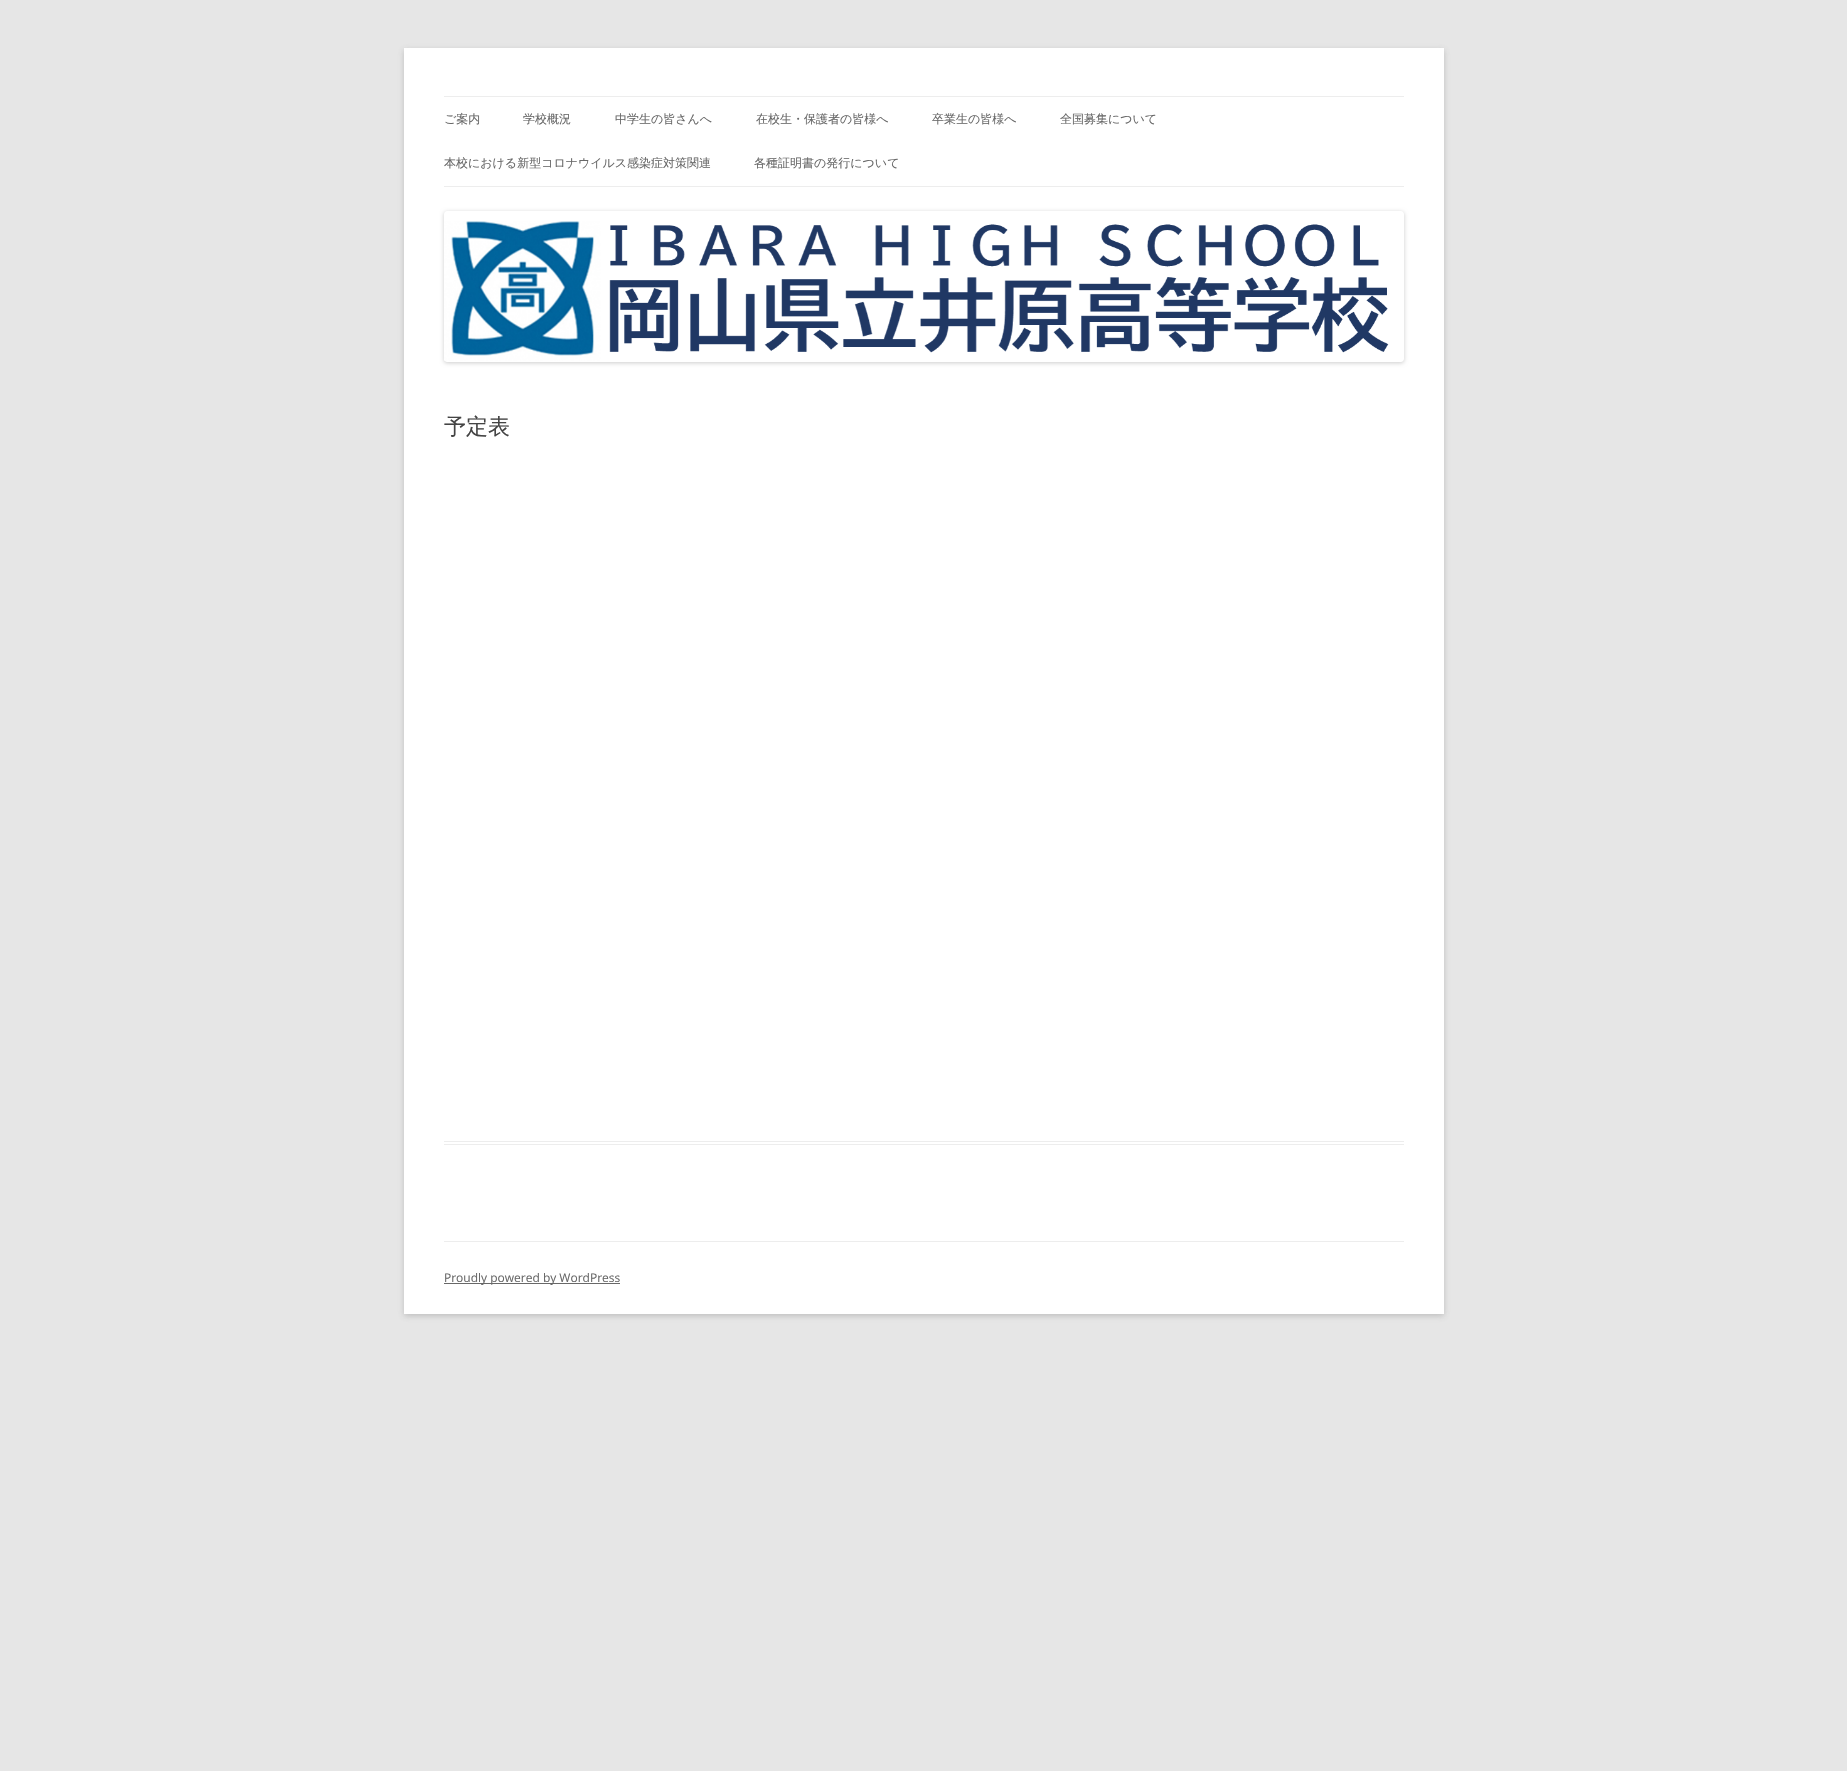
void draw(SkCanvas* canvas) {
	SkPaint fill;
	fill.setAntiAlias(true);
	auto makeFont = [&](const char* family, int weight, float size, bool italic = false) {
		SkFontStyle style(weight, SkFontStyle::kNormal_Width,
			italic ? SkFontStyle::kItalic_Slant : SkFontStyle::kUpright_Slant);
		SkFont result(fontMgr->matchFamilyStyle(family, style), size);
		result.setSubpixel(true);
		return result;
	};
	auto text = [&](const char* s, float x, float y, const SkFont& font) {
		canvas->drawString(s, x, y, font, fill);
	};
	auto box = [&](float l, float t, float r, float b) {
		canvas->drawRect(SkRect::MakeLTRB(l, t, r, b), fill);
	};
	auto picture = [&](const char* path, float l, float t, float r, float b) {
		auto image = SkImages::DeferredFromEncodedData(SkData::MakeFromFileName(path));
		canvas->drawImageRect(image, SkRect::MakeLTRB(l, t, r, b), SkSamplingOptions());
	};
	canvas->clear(0xFFE6E6E6);
	fill.setColor(0x4D646464);
	fill.setMaskFilter(SkMaskFilter::MakeBlur(kNormal_SkBlurStyle, 3));
	canvas->drawRect(SkRect::MakeLTRB(404, 50, 1444, 1316), fill);
	fill.setMaskFilter(nullptr);
	fill.setColor(0xFFFFFFFF);
	box(404, 48, 1444, 1314);
	fill.setColor(0xFFEDEDED);
	box(444, 96, 1404, 97);
	box(444, 186, 1404, 187);
	canvas->save();
	canvas->clipPath(SkPathBuilder(SkPathFillType::kEvenOdd).moveTo(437, 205).lineTo(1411, 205).lineTo(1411, 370).lineTo(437, 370).close().moveTo(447, 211).lineTo(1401, 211).cubicTo(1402.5f, 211, 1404, 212.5f, 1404, 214).lineTo(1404, 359).cubicTo(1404, 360.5f, 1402.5f, 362, 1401, 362).lineTo(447, 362).cubicTo(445.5f, 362, 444, 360.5f, 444, 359).lineTo(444, 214).cubicTo(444, 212.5f, 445.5f, 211, 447, 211).close().detach(), true);
	fill.setColor(0x33000000);
	fill.setMaskFilter(SkMaskFilter::MakeBlur(kNormal_SkBlurStyle, 2));
	canvas->drawRoundRect(SkRect::MakeLTRB(444, 212, 1404, 363), 3, 3, fill);
	fill.setMaskFilter(nullptr);
	canvas->restore();
	picture("image0.png", 444, 221, 1389, 361);
	fill.setColor(0xFFEDEDED);
	box(444, 1141, 1404, 1142);
	box(444, 1144, 1404, 1145);
	box(444, 1241, 1404, 1242);
	fill.setColor(0xFF686868);
	box(444, 1283, 620, 1284);
	auto font1 = makeFont("WenQuanYi Zen Hei", 500, 12);
	text("ご案内", 444, 123, font1);
	text("学校概況", 523, 123, font1);
	text("中学生の皆さんへ", 615, 123, font1);
	text("在校生・保護者の皆様へ", 756, 123, font1);
	text("卒業生の皆様へ", 932, 123, font1);
	text("全国募集について", 1060, 123, font1);
	text("本校における新型コロナウイルス感染症対策関連", 444, 167, font1);
	text("各種証明書の発行について", 754, 167, font1);
	auto font2 = makeFont("WenQuanYi Zen Hei", 500, 22);
	fill.setColor(0xFF444444);
	text("予定表", 444, 434, font2);
	auto font3 = makeFont("Open Sans", 400, 12);
	fill.setColor(0xFF686868);
	text("Proudly powered by WordPress", 444, 1282, font3);
}
